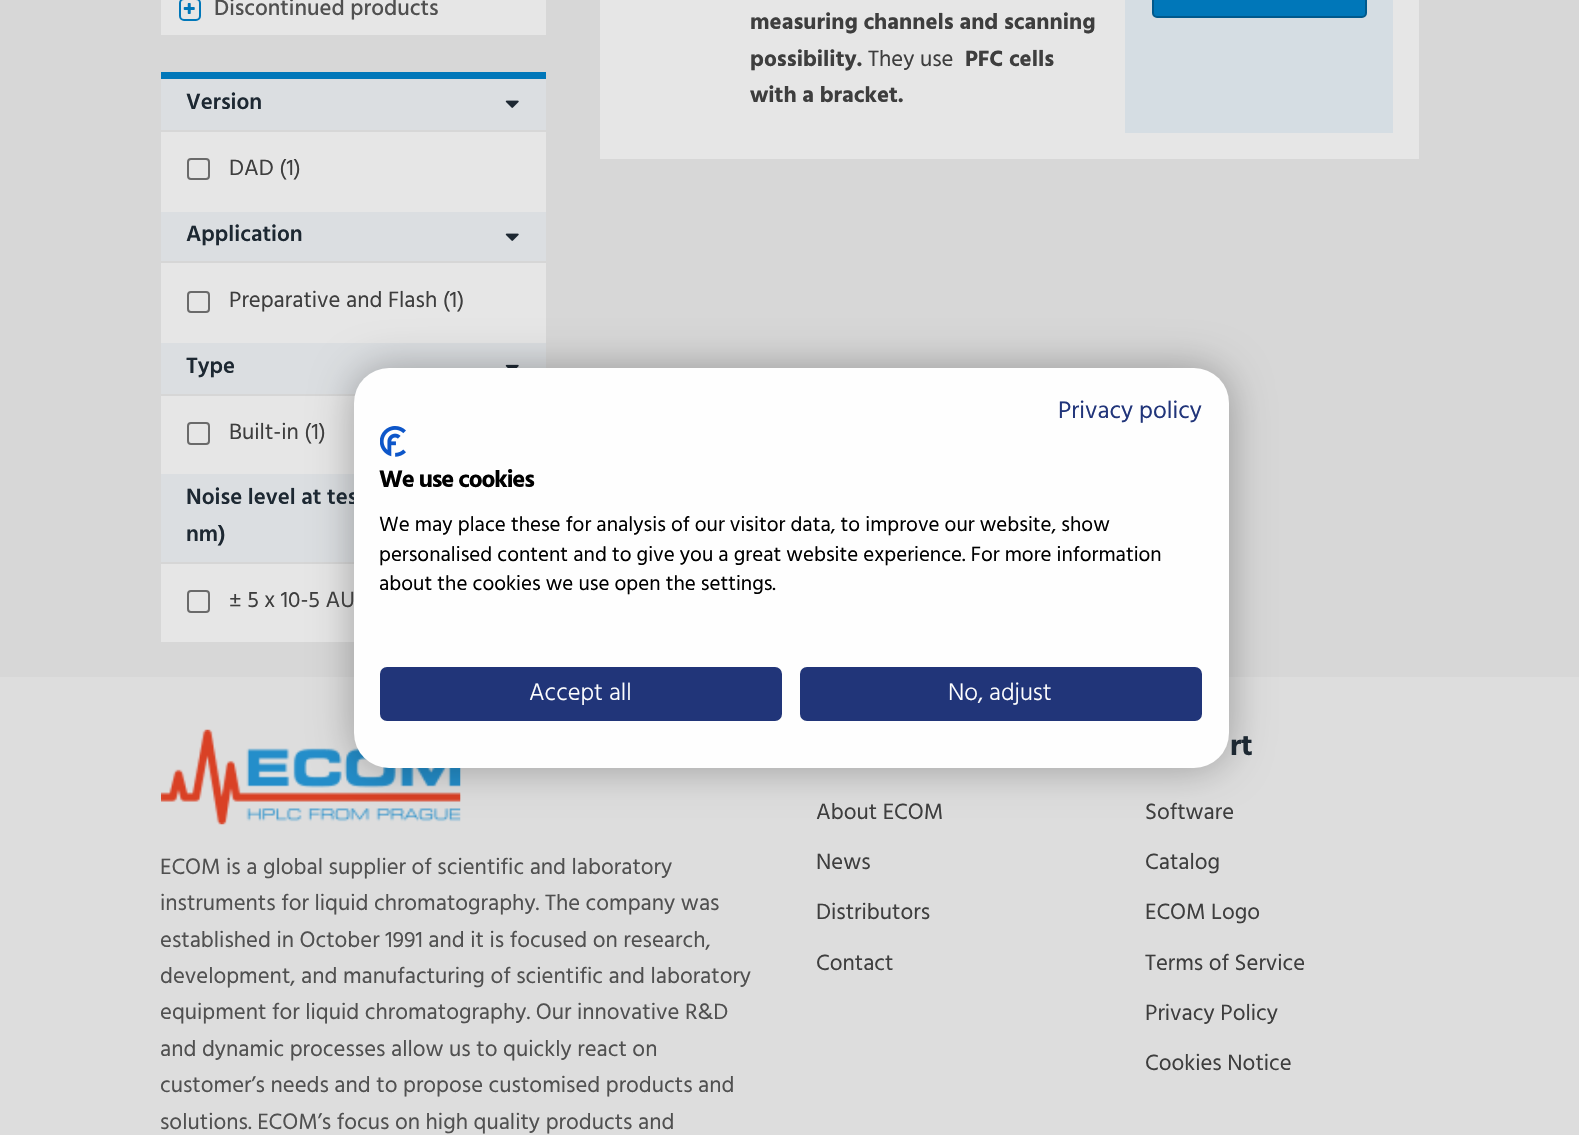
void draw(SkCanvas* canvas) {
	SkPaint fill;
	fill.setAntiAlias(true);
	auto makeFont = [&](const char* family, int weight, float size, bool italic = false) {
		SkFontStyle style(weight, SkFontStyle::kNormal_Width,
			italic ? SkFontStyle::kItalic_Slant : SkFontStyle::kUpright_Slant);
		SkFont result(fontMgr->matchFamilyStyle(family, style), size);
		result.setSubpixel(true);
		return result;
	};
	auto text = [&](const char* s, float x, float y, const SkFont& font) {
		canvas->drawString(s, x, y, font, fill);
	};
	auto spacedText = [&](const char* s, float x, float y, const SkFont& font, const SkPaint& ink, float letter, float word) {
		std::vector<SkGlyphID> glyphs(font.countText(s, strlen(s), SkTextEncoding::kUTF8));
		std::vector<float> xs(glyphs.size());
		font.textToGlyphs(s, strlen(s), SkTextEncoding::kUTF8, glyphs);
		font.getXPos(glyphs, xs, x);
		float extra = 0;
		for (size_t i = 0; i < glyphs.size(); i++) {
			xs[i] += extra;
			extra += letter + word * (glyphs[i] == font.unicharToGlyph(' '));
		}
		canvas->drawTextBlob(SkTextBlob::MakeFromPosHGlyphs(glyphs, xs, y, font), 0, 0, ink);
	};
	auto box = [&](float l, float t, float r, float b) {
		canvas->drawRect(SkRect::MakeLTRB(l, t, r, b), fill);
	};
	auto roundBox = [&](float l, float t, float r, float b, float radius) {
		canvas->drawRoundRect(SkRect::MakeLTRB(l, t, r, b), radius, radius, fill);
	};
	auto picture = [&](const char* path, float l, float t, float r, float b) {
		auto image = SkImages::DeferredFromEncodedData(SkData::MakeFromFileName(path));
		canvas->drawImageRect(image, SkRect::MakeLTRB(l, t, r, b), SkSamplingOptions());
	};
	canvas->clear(0xFFD7D7D7);
	fill.setColor(0xFFE6E6E6);
	box(161, 0, 546, 35);
	fill.setStyle(SkPaint::kStroke_Style);
	fill.setStrokeWidth(2);
	fill.setColor(0xFF0077B9);
	canvas->drawRoundRect(SkRect::MakeLTRB(180, -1, 200, 20), 4, 4, fill);
	picture("image0.png", 183, 3, 195, 14);
	fill.setStyle(SkPaint::kFill_Style);
	fill.setColor(0xFFE6E6E6);
	box(161, 132, 546, 642);
	fill.setColor(0xFF0077B9);
	box(161, 72, 546, 79);
	fill.setColor(0xFFDBDEE1);
	box(161, 79, 546, 130);
	picture("image1.png", 505, 100, 519, 108);
	fill.setStyle(SkPaint::kStroke_Style);
	fill.setColor(0xFF6A6A6A);
	canvas->drawRoundRect(SkRect::MakeLTRB(188, 159, 209, 179), 3, 3, fill);
	fill.setStyle(SkPaint::kFill_Style);
	fill.setColor(0xFFDBDEE1);
	box(161, 212, 546, 261);
	fill.setColor(0xFFD6D6D6);
	box(161, 261, 546, 263);
	picture("image1.png", 505, 233, 519, 241);
	fill.setStyle(SkPaint::kStroke_Style);
	fill.setColor(0xFF6A6A6A);
	canvas->drawRoundRect(SkRect::MakeLTRB(188, 292, 209, 312), 3, 3, fill);
	fill.setStyle(SkPaint::kFill_Style);
	fill.setColor(0xFFDBDEE1);
	box(161, 343, 546, 394);
	fill.setColor(0xFFD6D6D6);
	box(161, 394, 356, 396);
	picture("image2.png", 505, 364, 519, 368);
	fill.setStyle(SkPaint::kStroke_Style);
	fill.setColor(0xFF6A6A6A);
	canvas->drawRoundRect(SkRect::MakeLTRB(188, 423, 209, 444), 3, 3, fill);
	fill.setStyle(SkPaint::kFill_Style);
	fill.setColor(0xFFDBDEE1);
	box(161, 474, 354, 562);
	fill.setColor(0xFFD6D6D6);
	box(161, 562, 354, 564);
	fill.setStyle(SkPaint::kStroke_Style);
	fill.setColor(0xFF6A6A6A);
	canvas->drawRoundRect(SkRect::MakeLTRB(188, 591, 209, 612), 3, 3, fill);
	fill.setStyle(SkPaint::kFill_Style);
	fill.setColor(0xFFE6E6E6);
	box(600, 0, 1419, 159);
	fill.setColor(0xFFD5DDE3);
	box(1125, 0, 1393, 133);
	fill.setColor(0xFF0077B9);
	canvas->drawRoundRect(SkRect::MakeLTRB(1153, -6, 1366, 17), 4, 4, fill);
	fill.setStyle(SkPaint::kStroke_Style);
	fill.setColor(0xFF00598C);
	canvas->drawRoundRect(SkRect::MakeLTRB(1153, -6, 1366, 17), 4, 4, fill);
	fill.setStyle(SkPaint::kFill_Style);
	fill.setColor(0xFFDDDDDD);
	box(0, 677, 1579, 1135);
	picture("image3.png", 161, 729, 461, 825);
	fill.setColor(0x4D000000);
	fill.setMaskFilter(SkMaskFilter::MakeBlur(kNormal_SkBlurStyle, 21));
	canvas->drawRoundRect(SkRect::MakeLTRB(354, 368, 1229, 768), 35, 35, fill);
	fill.setMaskFilter(nullptr);
	auto font1 = makeFont("Hind", 500, 22.75f);
	fill.setColor(0xFF505050);
	text("Discontinued products", 214, 15, font1);
	auto font2 = makeFont("Hind", 600, 22.75f);
	fill.setColor(0xFF1D2832);
	text("Version", 186, 109, font2);
	auto font3 = makeFont("Hind", 400, 22.75f);
	fill.setColor(0xFF3E3E3E);
	text("DAD (1)", 229, 175, font3);
	fill.setColor(0xFF1D2832);
	text("Application", 186, 241, font2);
	fill.setColor(0xFF3E3E3E);
	text("Preparative and Flash (1)", 229, 307, font3);
	fill.setColor(0xFF1D2832);
	text("Type", 186, 373, font2);
	fill.setColor(0xFF3E3E3E);
	text("Built-in (1)", 229, 439, font3);
	fill.setColor(0xFF1D2832);
	text("Noise level at tes", 186, 504, font2);
	text("nm)", 186, 541, font2);
	fill.setColor(0xFF3E3E3E);
	text("± 5 x 10-5 AU", 229, 607, font3);
	auto font4 = makeFont("Hind", 700, 22.75f);
	text("measuring channels and scanning", 750, 29, font4);
	text("possibility.", 750, 66, font4);
	text("They use", 868, 66, font3);
	text("PFC cells", 965, 66, font4);
	text("with a bracket.", 750, 102, font4);
	fill.setColor(0xFF505050);
	text("ECOM is a global supplier of scientific and laboratory", 160, 874, font3);
	text("instruments for liquid chromatography. The company was", 160, 910, font3);
	text("established in October 1991 and it is focused on research,", 160, 947, font3);
	text("development, and manufacturing of scientific and laboratory", 160, 983, font3);
	text("equipment for liquid chromatography. Our innovative R&D", 160, 1019, font3);
	text("and dynamic processes allow us to quickly react on", 160, 1056, font3);
	text("customer’s needs and to propose customised products and", 160, 1092, font3);
	text("solutions. ECOM’s focus on high quality products and", 160, 1129, font3);
	fill.setColor(0xFF3E3E3E);
	text("About ECOM", 816, 819, font3);
	text("News", 816, 869, font3);
	text("Distributors", 816, 919, font3);
	text("Contact", 816, 970, font3);
	auto font5 = makeFont("Hind", 700, 30);
	fill.setColor(0xFF1D2832);
	text("rt", 1230, 755, font5);
	fill.setColor(0xFF3E3E3E);
	text("Software", 1145, 819, font3);
	text("Catalog", 1145, 869, font3);
	text("ECOM Logo", 1145, 919, font3);
	text("Terms of Service", 1145, 970, font3);
	text("Privacy Policy", 1145, 1020, font3);
	text("Cookies Notice", 1145, 1070, font3);
	fill.setColor(0xFFFEFEFE);
	roundBox(354, 368, 1229, 768, 35);
	auto font6 = makeFont("Hind", 400, 24.5f);
	fill.setColor(0xFF21357A);
	text("Privacy policy", 1058, 418, font6);
	picture("image4.png", 380, 426, 406, 457);
	auto font7 = makeFont("Hind", 700, 24.5f);
	fill.setColor(0xFF000000);
	spacedText("We use cookies", 379, 487, font7, fill, -1.1f, 0);
	auto font8 = makeFont("Hind", 400, 21);
	text("We may place these for analysis of our visitor data, to improve our website, show", 379, 531, font8);
	text("personalised content and to give you a great website experience. For more information", 379, 561, font8);
	text("about the cookies we use open the settings.", 379, 590, font8);
	fill.setColor(0xFF213579);
	canvas->drawRoundRect(SkRect::MakeLTRB(381, 668, 781, 720), 6, 6, fill);
	fill.setStyle(SkPaint::kStroke_Style);
	canvas->drawRoundRect(SkRect::MakeLTRB(381, 668, 781, 720), 6, 6, fill);
	auto font9 = makeFont("Hind", 300, 24.5f);
	fill.setStyle(SkPaint::kFill_Style);
	fill.setColor(0xFFFFFFFF);
	text("Accept all", 529, 700, font9);
	fill.setColor(0xFF213579);
	canvas->drawRoundRect(SkRect::MakeLTRB(801, 668, 1201, 720), 6, 6, fill);
	fill.setStyle(SkPaint::kStroke_Style);
	canvas->drawRoundRect(SkRect::MakeLTRB(801, 668, 1201, 720), 6, 6, fill);
	fill.setStyle(SkPaint::kFill_Style);
	fill.setColor(0xFFFFFFFF);
	text("No, adjust", 948, 700, font9);
}
